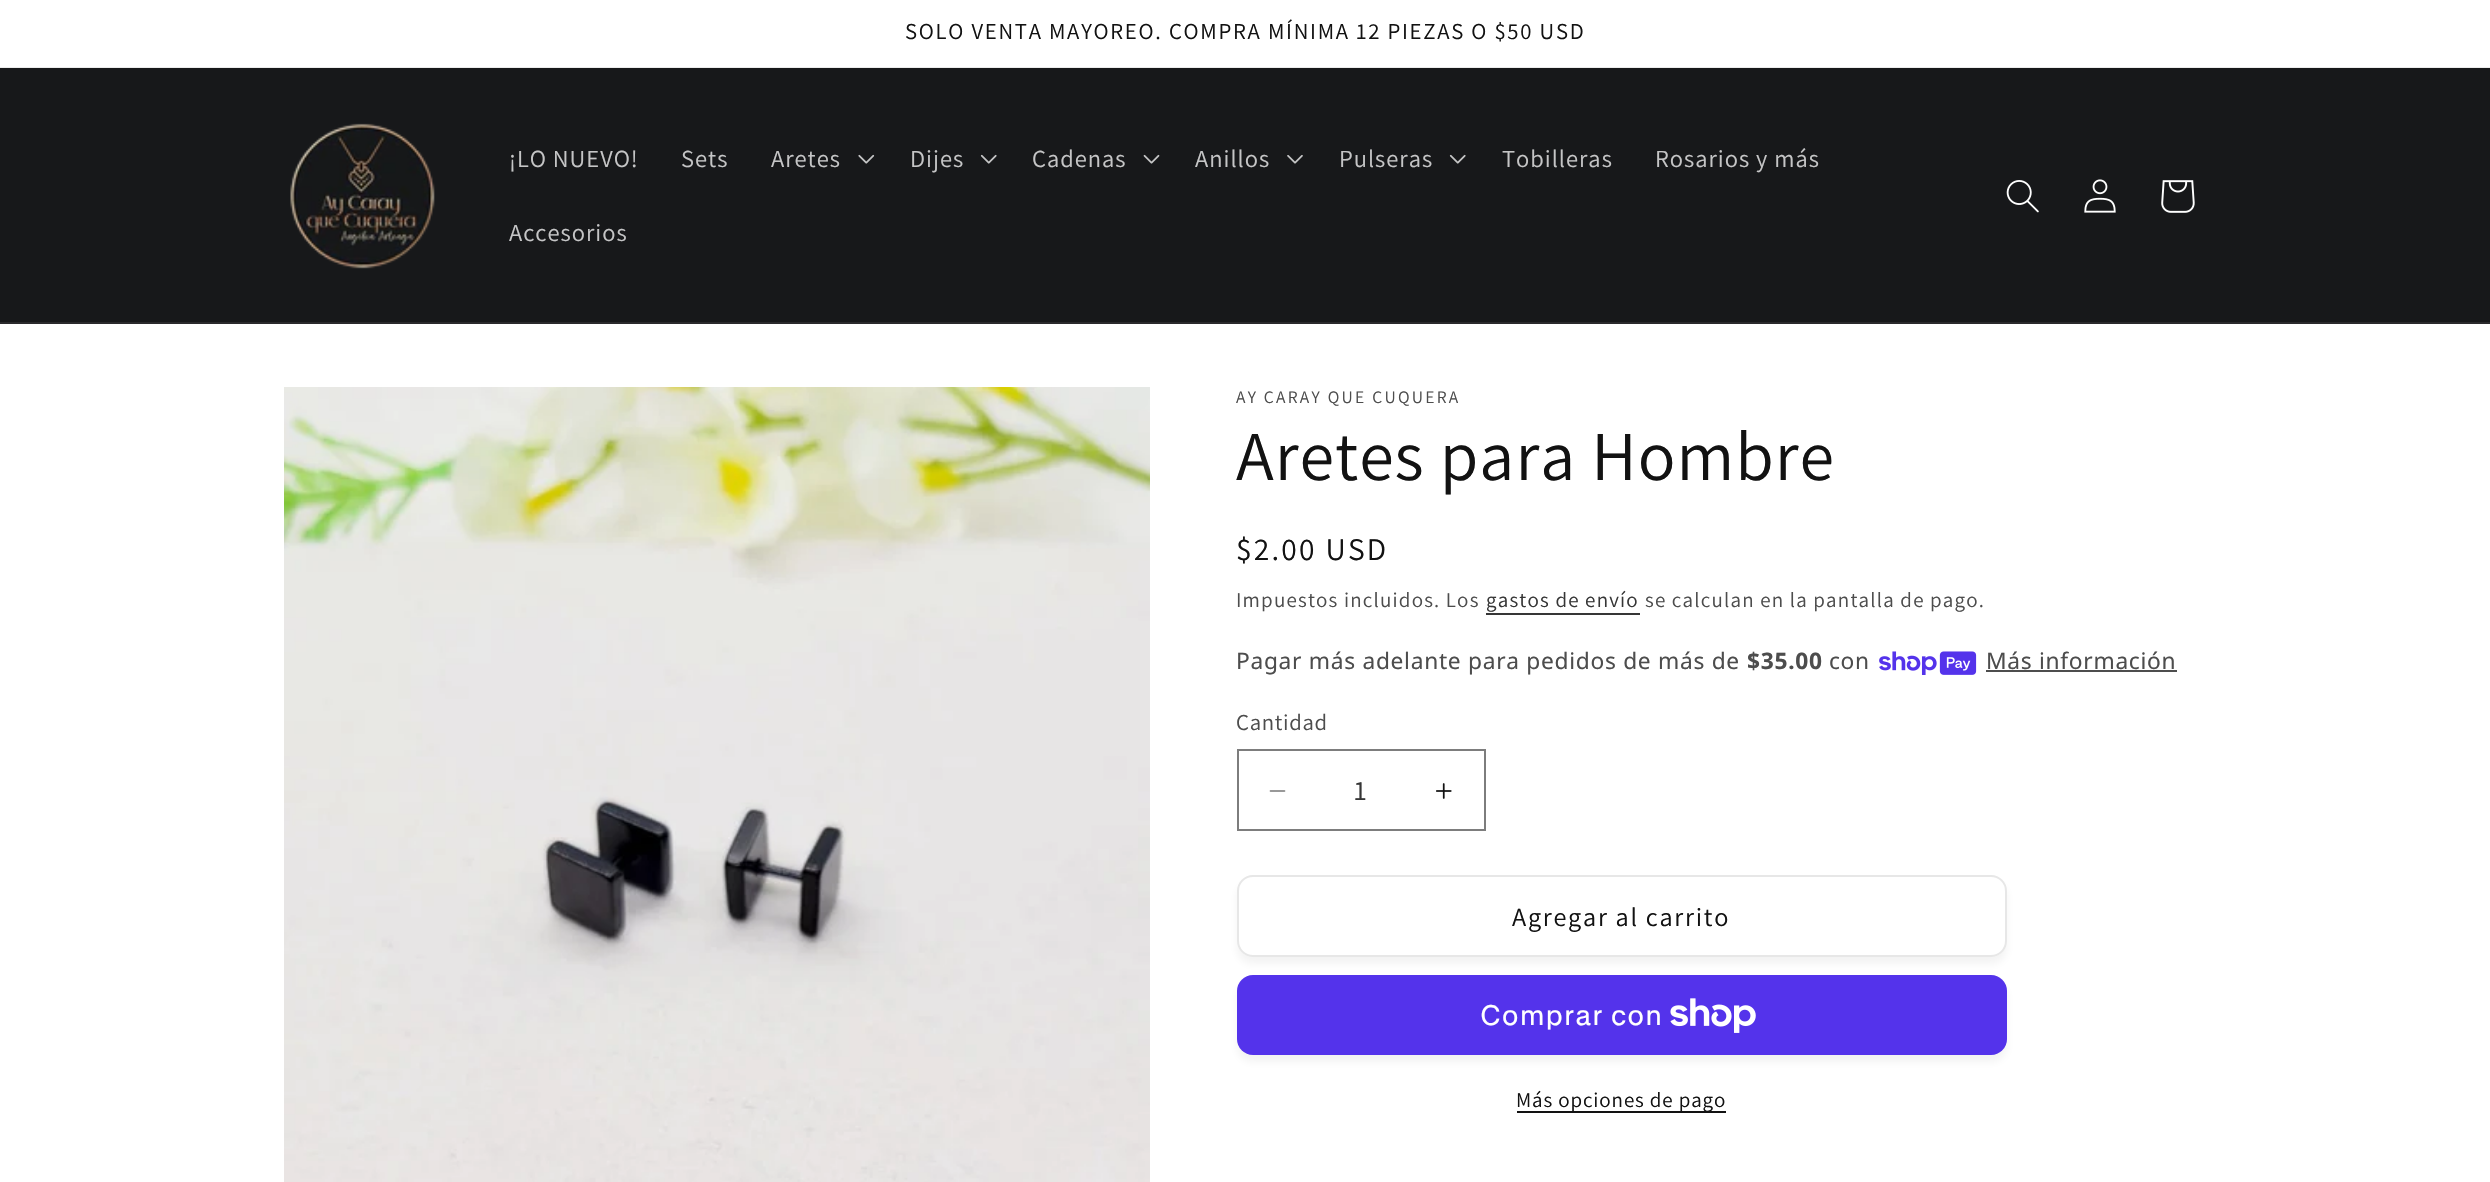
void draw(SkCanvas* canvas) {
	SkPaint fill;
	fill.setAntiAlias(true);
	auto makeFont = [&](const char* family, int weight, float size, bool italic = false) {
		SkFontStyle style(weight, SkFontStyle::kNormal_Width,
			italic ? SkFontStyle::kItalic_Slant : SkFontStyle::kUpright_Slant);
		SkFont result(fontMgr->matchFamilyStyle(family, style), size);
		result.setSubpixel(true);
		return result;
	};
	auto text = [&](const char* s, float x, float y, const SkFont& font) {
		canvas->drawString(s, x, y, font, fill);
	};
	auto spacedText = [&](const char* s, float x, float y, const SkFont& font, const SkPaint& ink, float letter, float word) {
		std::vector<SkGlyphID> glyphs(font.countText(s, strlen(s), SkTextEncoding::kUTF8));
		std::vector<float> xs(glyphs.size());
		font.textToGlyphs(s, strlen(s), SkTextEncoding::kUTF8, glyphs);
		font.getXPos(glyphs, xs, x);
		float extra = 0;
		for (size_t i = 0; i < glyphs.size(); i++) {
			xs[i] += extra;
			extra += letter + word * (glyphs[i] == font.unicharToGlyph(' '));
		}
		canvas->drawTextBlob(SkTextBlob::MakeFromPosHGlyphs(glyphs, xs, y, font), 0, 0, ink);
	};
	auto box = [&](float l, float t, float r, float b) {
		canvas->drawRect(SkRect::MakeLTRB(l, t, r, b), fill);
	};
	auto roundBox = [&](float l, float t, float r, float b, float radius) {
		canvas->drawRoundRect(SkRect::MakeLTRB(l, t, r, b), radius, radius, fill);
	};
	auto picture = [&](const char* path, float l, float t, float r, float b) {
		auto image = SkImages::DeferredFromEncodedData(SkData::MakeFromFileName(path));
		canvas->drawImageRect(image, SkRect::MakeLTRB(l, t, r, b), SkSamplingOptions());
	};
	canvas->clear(0xFFFFFFFF);
	fill.setColor(0xFFECECEC);
	box(0, 67, 2490, 68);
	fill.setColor(0xFF17181A);
	box(0, 69, 2490, 322);
	fill.setColor(0xFF171819);
	box(0, 68, 2490, 69);
	fill.setColor(0xFF2A2A2C);
	box(0, 322, 2490, 324);
	picture("image0.png", 290, 123, 435, 269);
	picture("image1.png", 858, 154, 875, 164);
	picture("image2.png", 980, 154, 997, 164);
	picture("image3.png", 1143, 154, 1160, 164);
	picture("image4.png", 1287, 155, 1303, 164);
	picture("image2.png", 1449, 154, 1466, 164);
	picture("image5.png", 2006, 180, 2039, 213);
	picture("image6.png", 2084, 179, 2116, 213);
	picture("image7.png", 2161, 180, 2195, 213);
	picture("image8.png", 284, 387, 1150, 1182);
	fill.setColor(0xFF363636);
	box(1486, 613, 1640, 615);
	picture("image9.png", 1879, 651, 1977, 675);
	fill.setColor(0xFF4D4D4D);
	box(1986, 670, 2177, 672);
	picture("image10.png", 1269, 790, 1286, 792);
	picture("image11.png", 1436, 783, 1452, 799);
	fill.setStyle(SkPaint::kStroke_Style);
	fill.setStrokeWidth(2);
	fill.setColor(0xFF7D7D7D);
	canvas->drawRect(SkRect::MakeLTRB(1238, 750, 1485, 830), fill);
	fill.setStyle(SkPaint::kFill_Style);
	fill.setColor(0x0D121212);
	fill.setMaskFilter(SkMaskFilter::MakeBlur(kNormal_SkBlurStyle, 4.5f));
	canvas->drawRoundRect(SkRect::MakeLTRB(1237, 882, 2007, 964), 16, 16, fill);
	fill.setMaskFilter(nullptr);
	fill.setColor(0xFFFFFFFF);
	roundBox(1237, 875, 2007, 957, 16);
	fill.setStyle(SkPaint::kStroke_Style);
	fill.setColor(0xFFE7E7E7);
	canvas->drawRoundRect(SkRect::MakeLTRB(1238, 876, 2006, 956), 15, 15, fill);
	fill.setStyle(SkPaint::kFill_Style);
	fill.setColor(0x0D121212);
	fill.setMaskFilter(SkMaskFilter::MakeBlur(kNormal_SkBlurStyle, 4.5f));
	canvas->drawRoundRect(SkRect::MakeLTRB(1237, 982, 2007, 1062), 16, 16, fill);
	fill.setMaskFilter(nullptr);
	fill.setColor(0xFF5433EB);
	roundBox(1237, 975, 2007, 1055, 16);
	picture("image12.png", 1670, 998, 1756, 1033);
	fill.setColor(0xFF121212);
	box(1517, 1111, 1726, 1113);
	auto font1 = makeFont("Assistant", 400, 22.75f);
	spacedText("SOLO VENTA MAYOREO. COMPRA MÍNIMA 12 PIEZAS O $50 USD", 905, 39, font1, fill, 1.75f, 0);
	auto font2 = makeFont("Assistant", 400, 24.5f);
	fill.setColor(0xFFC5C5C6);
	spacedText("¡LO NUEVO!", 509, 167, font2, fill, 1, 0);
	spacedText("Sets", 681, 167, font2, fill, 1, 0);
	spacedText("Aretes", 771, 167, font2, fill, 1, 0);
	spacedText("Dijes", 910, 167, font2, fill, 1, 0);
	spacedText("Cadenas", 1032, 167, font2, fill, 1, 0);
	spacedText("Anillos", 1195, 167, font2, fill, 1, 0);
	spacedText("Pulseras", 1339, 167, font2, fill, 1, 0);
	spacedText("Tobilleras", 1502, 167, font2, fill, 1, 0);
	spacedText("Rosarios y más", 1655, 167, font2, fill, 1, 0);
	spacedText("Accesorios", 509, 241, font2, fill, 1, 0);
	auto font3 = makeFont("Assistant", 400, 17.5f);
	fill.setColor(0xFF4D4D4D);
	spacedText("AY CARAY QUE CUQUERA", 1236, 403, font3, fill, 2.25f, 0);
	auto font4 = makeFont("Assistant", 400, 70);
	fill.setColor(0xFF121212);
	spacedText("Aretes para Hombre", 1236, 480, font4, fill, 1, 0);
	auto font5 = makeFont("Assistant", 400, 31.5f);
	spacedText("$2.00 USD", 1236, 560, font5, fill, 2.25f, 0);
	auto font6 = makeFont("Assistant", 400, 21);
	fill.setColor(0xFF4D4D4D);
	spacedText("Impuestos incluidos. Los", 1236, 607, font6, fill, 1.2f, 0);
	fill.setColor(0xFF363636);
	spacedText("gastos de envío", 1486, 607, font6, fill, 1.2f, 0);
	fill.setColor(0xFF4D4D4D);
	spacedText("se calculan en la pantalla de pago.", 1645, 607, font6, fill, 1.2f, 0);
	auto font7 = makeFont("Noto Sans", 400, 22.75f);
	spacedText("Pagar más adelante para pedidos de más de", 1236, 669, font7, fill, 0.7f, 0);
	auto font8 = makeFont("Noto Sans", 700, 22.75f);
	spacedText("$35.00", 1747, 669, font8, fill, 0.7f, 0);
	spacedText("con", 1829, 669, font7, fill, 0.7f, 0);
	spacedText("Más información", 1986, 669, font7, fill, 0.7f, 0);
	spacedText("Cantidad", 1236, 730, font1, fill, 0.7f, 0);
	auto font9 = makeFont("Assistant", 400, 28);
	fill.setColor(0xFF363636);
	text("1", 1354, 800, font9);
	auto font10 = makeFont("Assistant", 400, 26.25f);
	fill.setColor(0xFF121212);
	spacedText("Agregar al carrito", 1512, 926, font10, fill, 1.75f, 0);
	auto font11 = makeFont("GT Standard", 400, 28);
	fill.setColor(0xFFFFFFFF);
	spacedText("Comprar con", 1480, 1025, font11, fill, 1, 0);
	fill.setColor(0xFF121212);
	spacedText("Más opciones de pago", 1516, 1107, font6, fill, 0.9f, 0);
}
